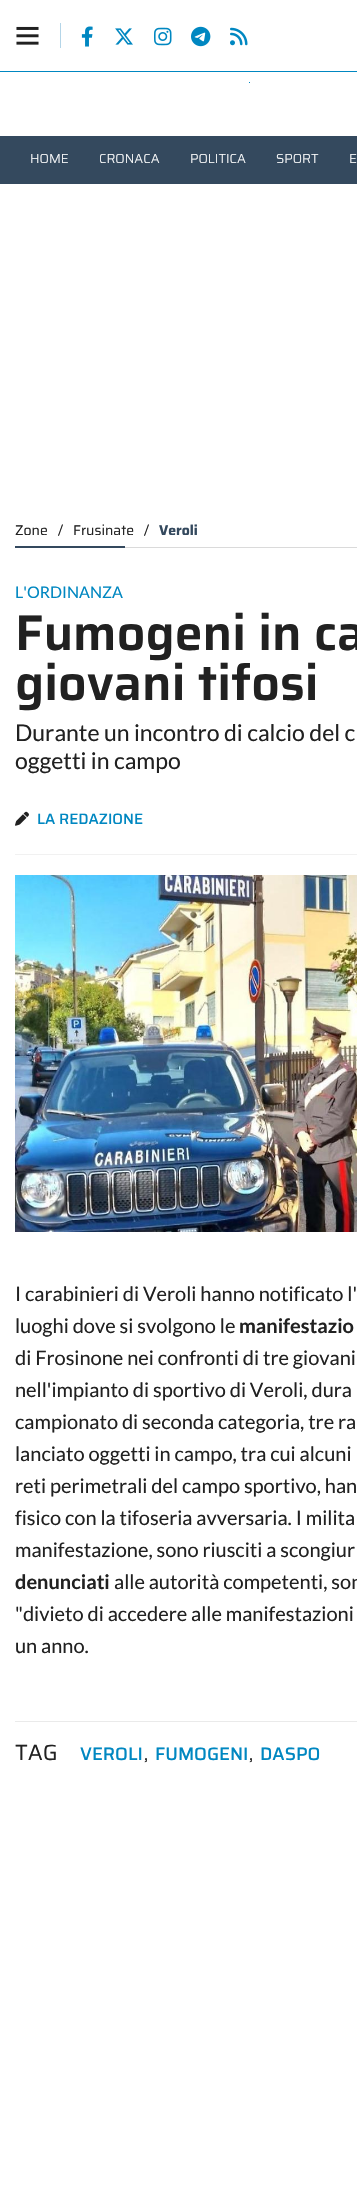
void draw(SkCanvas* canvas) {
	SkPaint fill;
	fill.setAntiAlias(true);
	auto makeFont = [&](const char* family, int weight, float size, bool italic = false) {
		SkFontStyle style(weight, SkFontStyle::kNormal_Width,
			italic ? SkFontStyle::kItalic_Slant : SkFontStyle::kUpright_Slant);
		SkFont result(fontMgr->matchFamilyStyle(family, style), size);
		result.setSubpixel(true);
		return result;
	};
	auto text = [&](const char* s, float x, float y, const SkFont& font) {
		canvas->drawString(s, x, y, font, fill);
	};
	auto box = [&](float l, float t, float r, float b) {
		canvas->drawRect(SkRect::MakeLTRB(l, t, r, b), fill);
	};
	auto picture = [&](const char* path, float l, float t, float r, float b) {
		auto image = SkImages::DeferredFromEncodedData(SkData::MakeFromFileName(path));
		canvas->drawImageRect(image, SkRect::MakeLTRB(l, t, r, b), SkSamplingOptions());
	};
	canvas->clear(0xFFFFFFFF);
	fill.setColor(0xFF0087C1);
	box(0, 71, 357, 72);
	fill.setColor(0xFFB4D5E8);
	box(60, 23, 61, 48);
	picture("image0.png", 16, 26, 39, 45);
	picture("image1.png", 81, 26, 93, 47);
	picture("image2.png", 115, 28, 133, 45);
	picture("image3.png", 154, 27, 172, 46);
	picture("image4.png", 191, 26, 211, 47);
	picture("image5.png", 230, 27, 248, 46);
	fill.setColor(0xFF0087C1);
	box(249, 82, 250, 83);
	fill.setColor(0xFF34495E);
	box(0, 136, 357, 184);
	fill.setColor(0xFFDADADA);
	box(125, 547, 357, 548);
	fill.setColor(0xFF34495E);
	box(15, 546, 125, 548);
	picture("image6.png", 15, 811, 29, 826);
	fill.setColor(0xFFF1F1F1);
	box(15, 854, 357, 855);
	picture("image7.png", 15, 875, 357, 1232);
	fill.setColor(0xFFEAEAEA);
	box(15, 1721, 357, 1722);
	auto font1 = makeFont("Saira", 300, 13);
	fill.setColor(0xFFFFFFFF);
	text("HOME", 30, 163, font1);
	text("CRONACA", 99, 163, font1);
	text("POLITICA", 190, 163, font1);
	text("SPORT", 276, 163, font1);
	text("E", 349, 163, font1);
	auto font2 = makeFont("Saira", 400, 14);
	fill.setColor(0xFF212121);
	text("Zone", 15, 535, font2);
	text("/", 58, 535, font2);
	text("Frusinate", 73, 535, font2);
	text("/", 144, 535, font2);
	auto font3 = makeFont("Saira", 700, 14);
	fill.setColor(0xFF34495E);
	text("Veroli", 159, 535, font3);
	auto font4 = makeFont("Lato", 400, 16);
	fill.setColor(0xFF0087C1);
	text("L'ORDINANZA", 15, 598, font4);
	auto font5 = makeFont("Saira", 600, 50);
	fill.setColor(0xFF212121);
	text("Fumogeni in ca", 15, 650, font5);
	text("giovani tifosi", 15, 700, font5);
	auto font6 = makeFont("Lato", 400, 23);
	text("Durante un incontro di calcio del c", 15, 741, font6);
	text("oggetti in campo", 15, 769, font6);
	auto font7 = makeFont("Saira", 500, 15);
	fill.setColor(0xFF0087C1);
	text("LA REDAZIONE", 37, 824, font7);
	auto font8 = makeFont("Lato", 400, 20);
	fill.setColor(0xFF212121);
	text("I carabinieri di Veroli hanno notificato l'", 15, 1301, font8);
	text("luoghi dove si svolgono le", 15, 1333, font8);
	auto font9 = makeFont("Lato", 700, 20);
	text("manifestazio", 239, 1333, font9);
	text("di Frosinone nei confronti di tre giovani", 15, 1365, font8);
	text("nell'impianto di sportivo di Veroli, dura", 15, 1397, font8);
	text("campionato di seconda categoria, tre ra", 15, 1429, font8);
	text("lanciato oggetti in campo, tra cui alcuni", 15, 1461, font8);
	text("reti perimetrali del campo sportivo, han", 15, 1493, font8);
	text("fisico con la tifoseria avversaria. I milita", 15, 1525, font8);
	text("manifestazione, sono riusciti a scongiur", 15, 1557, font8);
	text("denunciati", 15, 1589, font9);
	text("alle autorità competenti, son", 114, 1589, font8);
	text("\"divieto di accedere alle manifestazioni", 15, 1621, font8);
	text("un anno.", 15, 1653, font8);
	auto font10 = makeFont("Saira", 400, 22);
	text("TAG", 15, 1760, font10);
	auto font11 = makeFont("Saira", 500, 18);
	fill.setColor(0xFF0087C1);
	text("VEROLI", 80, 1760, font11);
	auto font12 = makeFont("Saira", 400, 18);
	fill.setColor(0xFF212121);
	text(",", 144, 1760, font12);
	fill.setColor(0xFF0087C1);
	text("FUMOGENI", 155, 1760, font11);
	fill.setColor(0xFF212121);
	text(",", 249, 1760, font12);
	fill.setColor(0xFF0087C1);
	text("DASPO", 260, 1760, font11);
}
